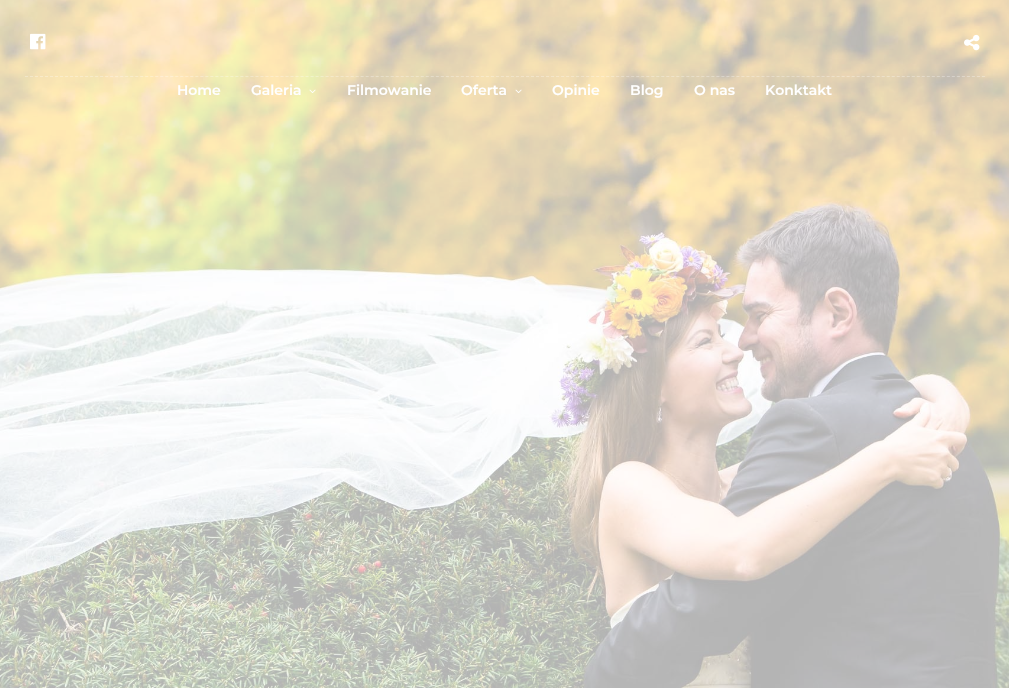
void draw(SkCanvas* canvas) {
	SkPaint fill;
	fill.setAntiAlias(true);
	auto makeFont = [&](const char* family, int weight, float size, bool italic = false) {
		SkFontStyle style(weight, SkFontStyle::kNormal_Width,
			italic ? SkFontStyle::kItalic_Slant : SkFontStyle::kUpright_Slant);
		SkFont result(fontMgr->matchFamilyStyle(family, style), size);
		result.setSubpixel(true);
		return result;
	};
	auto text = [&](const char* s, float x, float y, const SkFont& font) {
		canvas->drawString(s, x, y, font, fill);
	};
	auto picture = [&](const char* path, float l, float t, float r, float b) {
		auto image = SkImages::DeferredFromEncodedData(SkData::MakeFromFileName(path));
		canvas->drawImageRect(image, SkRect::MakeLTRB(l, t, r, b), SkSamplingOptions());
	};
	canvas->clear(0xFFFFFFFF);
	picture("image0.png", 0, 0, 1009, 688);
	picture("image1.png", 30, 33, 46, 50);
	picture("image2.png", 964, 34, 980, 51);
	fill.setStyle(SkPaint::kStroke_Style);
	fill.setStrokeWidth(1);
	fill.setColor(0x4DFFFFFF);
	fill.setPathEffect(SkDashPathEffect::Make({{3, 2.01f}}, 0));
	canvas->drawPath(SkPathBuilder().moveTo(25, 76.5f).lineTo(985, 76.5f).detach(), fill);
	fill.setPathEffect(nullptr);
	picture("image3.png", 309, 89, 316, 93);
	picture("image4.png", 515, 89, 522, 93);
	auto font1 = makeFont("Montserrat", 600, 14);
	fill.setStyle(SkPaint::kFill_Style);
	fill.setColor(0xFFFFFFFF);
	text("Home", 177, 95, font1);
	text("Galeria", 251, 95, font1);
	text("Filmowanie", 347, 95, font1);
	text("Oferta", 461, 95, font1);
	text("Opinie", 552, 95, font1);
	text("Blog", 630, 95, font1);
	text("O nas", 694, 95, font1);
	text("Konktakt", 765, 95, font1);
}
